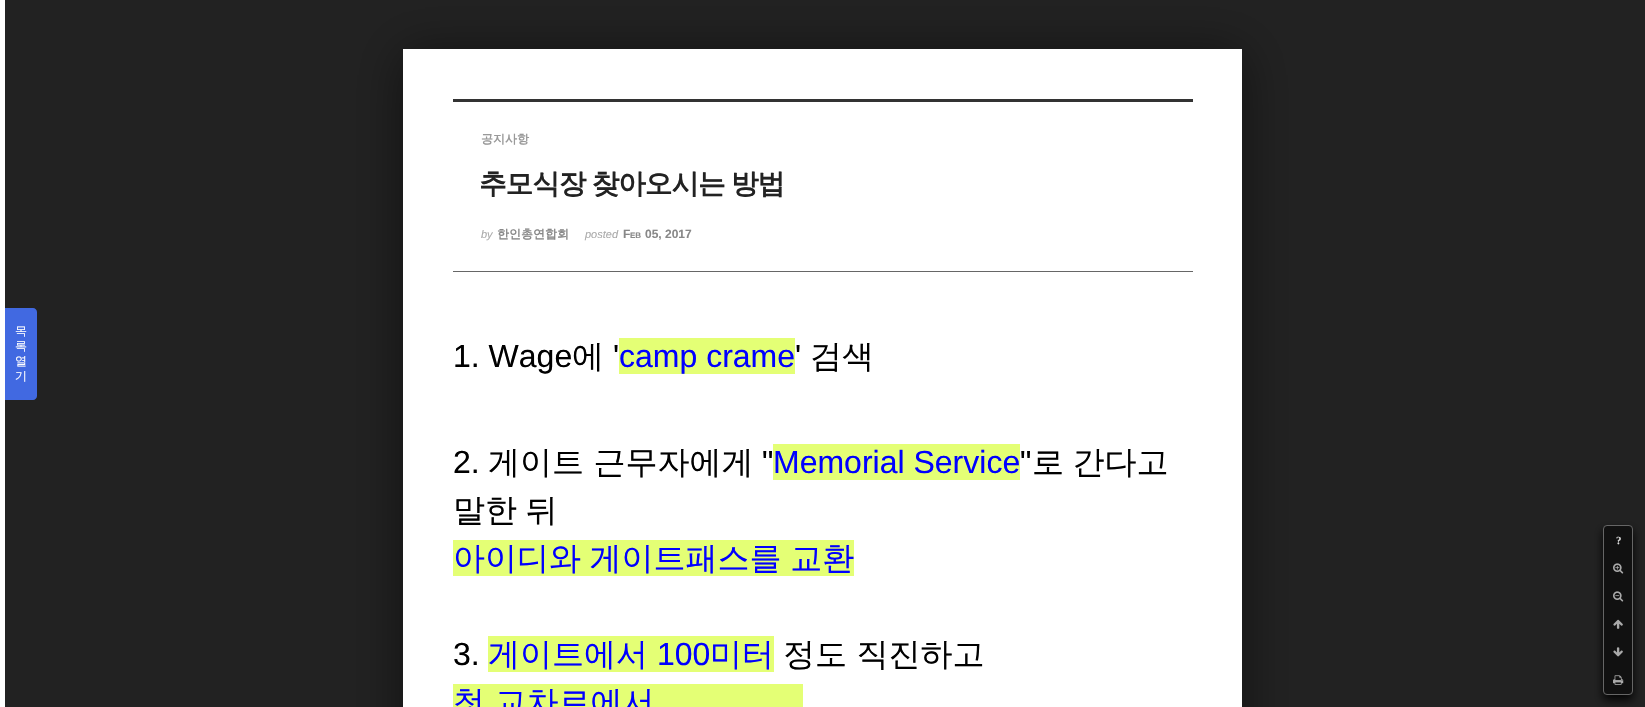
void draw(SkCanvas* canvas) {
	SkPaint fill;
	fill.setAntiAlias(true);
	auto makeFont = [&](const char* family, int weight, float size, bool italic = false) {
		SkFontStyle style(weight, SkFontStyle::kNormal_Width,
			italic ? SkFontStyle::kItalic_Slant : SkFontStyle::kUpright_Slant);
		SkFont result(fontMgr->matchFamilyStyle(family, style), size);
		result.setSubpixel(true);
		return result;
	};
	auto text = [&](const char* s, float x, float y, const SkFont& font) {
		canvas->drawString(s, x, y, font, fill);
	};
	auto spacedText = [&](const char* s, float x, float y, const SkFont& font, const SkPaint& ink, float letter, float word) {
		std::vector<SkGlyphID> glyphs(font.countText(s, strlen(s), SkTextEncoding::kUTF8));
		std::vector<float> xs(glyphs.size());
		font.textToGlyphs(s, strlen(s), SkTextEncoding::kUTF8, glyphs);
		font.getXPos(glyphs, xs, x);
		float extra = 0;
		for (size_t i = 0; i < glyphs.size(); i++) {
			xs[i] += extra;
			extra += letter + word * (glyphs[i] == font.unicharToGlyph(' '));
		}
		canvas->drawTextBlob(SkTextBlob::MakeFromPosHGlyphs(glyphs, xs, y, font), 0, 0, ink);
	};
	auto box = [&](float l, float t, float r, float b) {
		canvas->drawRect(SkRect::MakeLTRB(l, t, r, b), fill);
	};
	auto picture = [&](const char* path, float l, float t, float r, float b) {
		auto image = SkImages::DeferredFromEncodedData(SkData::MakeFromFileName(path));
		canvas->drawImageRect(image, SkRect::MakeLTRB(l, t, r, b), SkSamplingOptions());
	};
	canvas->clear(0xFF222222);
	fill.setColor(0x80000000);
	fill.setMaskFilter(SkMaskFilter::MakeBlur(kNormal_SkBlurStyle, 24));
	canvas->drawRect(SkRect::MakeLTRB(403, 53, 1242, 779), fill);
	fill.setMaskFilter(nullptr);
	fill.setColor(0xFFFFFFFF);
	box(403, 49, 1242, 707);
	box(0, 0, 5, 707);
	fill.setColor(0xFF4169E1);
	canvas->drawPath(SkPathBuilder().moveTo(5, 308).lineTo(33, 308).cubicTo(35, 308, 37, 310, 37, 312).lineTo(37, 396).cubicTo(37, 398, 35, 400, 33, 400).lineTo(5, 400).close().detach(), fill);
	fill.setColor(0xFF333333);
	box(453, 99, 1193, 102);
	fill.setColor(0xFF666666);
	box(453, 271, 1193, 272);
	fill.setColor(0xE6000000);
	fill.setMaskFilter(SkMaskFilter::MakeBlur(kNormal_SkBlurStyle, 5));
	canvas->drawRoundRect(SkRect::MakeLTRB(1603, 530, 1633, 700), 4, 4, fill);
	fill.setMaskFilter(nullptr);
	fill.setColor(0xFF111111);
	canvas->drawRoundRect(SkRect::MakeLTRB(1603.5f, 525.5f, 1632.5f, 694.5f), 3.5f, 3.5f, fill);
	fill.setStyle(SkPaint::kStroke_Style);
	fill.setStrokeWidth(1);
	fill.setColor(0xFF666666);
	canvas->drawRoundRect(SkRect::MakeLTRB(1603.5f, 525.5f, 1632.5f, 694.5f), 3.5f, 3.5f, fill);
	picture("image0.png", 1613, 563, 1624, 574);
	picture("image1.png", 1613, 591, 1624, 602);
	picture("image2.png", 1613, 619, 1623, 629);
	picture("image3.png", 1613, 647, 1623, 657);
	picture("image4.png", 1613, 675, 1624, 685);
	fill.setStyle(SkPaint::kFill_Style);
	fill.setColor(0xFFE4FF75);
	box(619, 338, 795, 374);
	box(773, 444, 1020, 480);
	box(453, 540, 854, 576);
	box(488, 636, 774, 672);
	box(453, 684, 803, 707);
	auto font1 = makeFont("WenQuanYi Zen Hei", 500, 12);
	fill.setColor(0xFFFFFFFF);
	text("목", 15, 335, font1);
	text("록", 15, 350, font1);
	text("열", 15, 365, font1);
	text("기", 15, 380, font1);
	auto font2 = makeFont("WenQuanYi Zen Hei", 700, 12);
	fill.setColor(0xFF999999);
	text("공지사항", 481, 143, font2);
	auto font3 = makeFont("WenQuanYi Zen Hei", 700, 27.6f);
	fill.setColor(0xFF222222);
	spacedText("추모식장 찾아오시는 방법", 479, 193, font3, fill, -1, -1);
	auto font4 = makeFont("Liberation Sans", 400, 11, true);
	fill.setColor(0xFFAAAAAA);
	text("by", 481, 238, font4);
	fill.setColor(0xFF888888);
	text("한인총연합회", 497, 238, font2);
	fill.setColor(0xFFAAAAAA);
	text("posted", 585, 238, font4);
	auto font5 = makeFont("Liberation Sans", 700, 12);
	fill.setColor(0xFF888888);
	text("F", 623, 238, font5);
	auto font6 = makeFont("Liberation Sans", 700, 8);
	text("EB", 630, 238, font6);
	text("05, 2017", 645, 238, font5);
	auto font7 = makeFont("Liberation Serif", 700, 11);
	fill.setColor(0xFFDDDDDD);
	spacedText("?", 1616, 544, font7, fill, -1, 0);
	auto font8 = makeFont("Liberation Sans", 400, 32);
	fill.setColor(0xFF000000);
	text("1. Wage", 453, 367, font8);
	auto font9 = makeFont("WenQuanYi Zen Hei", 500, 32);
	text("에", 572, 367, font9);
	text("'", 613, 367, font8);
	fill.setColor(0xFF0000FF);
	text("camp crame", 619, 367, font8);
	fill.setColor(0xFF000000);
	text("'", 795, 367, font8);
	text("검색", 810, 367, font9);
	text("2.", 453, 473, font8);
	text("게이트 근무자에게", 488, 473, font9);
	text("\"", 762, 473, font8);
	fill.setColor(0xFF0000FF);
	text("Memorial Service", 773, 473, font8);
	fill.setColor(0xFF000000);
	text("\"", 1020, 473, font8);
	spacedText("로 간다고", 1032, 473, font9, fill, 0, -1);
	spacedText("말한 뒤", 453, 521, font9, fill, 0, -1);
	fill.setColor(0xFF0000FF);
	spacedText("아이디와 게이트패스를 교환", 453, 569, font9, fill, 0, -1);
	fill.setColor(0xFF000000);
	text("3.", 453, 665, font8);
	fill.setColor(0xFF0000FF);
	text("게이트에서", 488, 665, font9);
	text("100", 657, 665, font8);
	text("미터", 710, 665, font9);
	fill.setColor(0xFF000000);
	text("정도 직진하고", 783, 665, font9);
	fill.setColor(0xFF0000FF);
	text("첫 교차로에서", 453, 713, font9);
}
